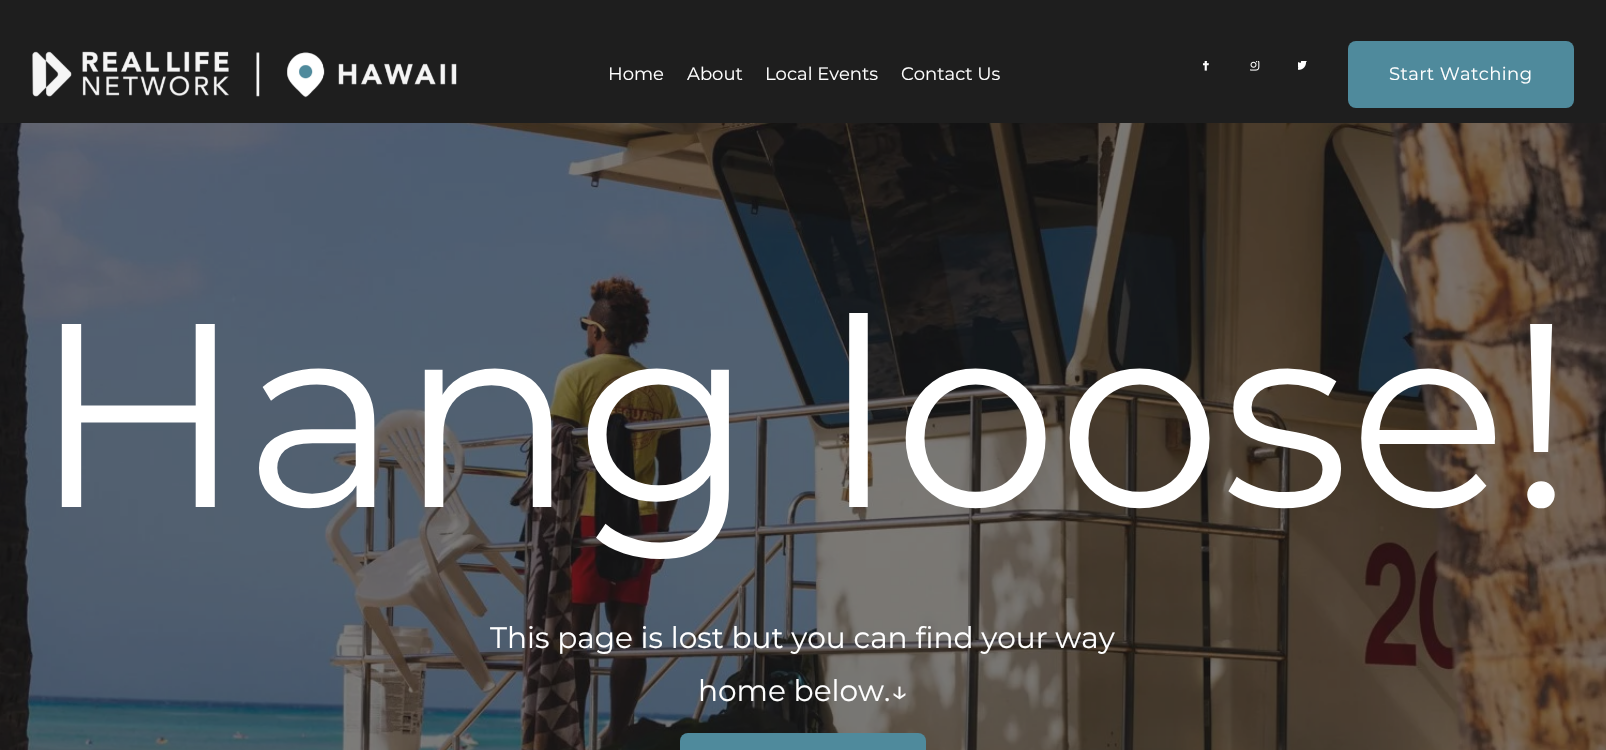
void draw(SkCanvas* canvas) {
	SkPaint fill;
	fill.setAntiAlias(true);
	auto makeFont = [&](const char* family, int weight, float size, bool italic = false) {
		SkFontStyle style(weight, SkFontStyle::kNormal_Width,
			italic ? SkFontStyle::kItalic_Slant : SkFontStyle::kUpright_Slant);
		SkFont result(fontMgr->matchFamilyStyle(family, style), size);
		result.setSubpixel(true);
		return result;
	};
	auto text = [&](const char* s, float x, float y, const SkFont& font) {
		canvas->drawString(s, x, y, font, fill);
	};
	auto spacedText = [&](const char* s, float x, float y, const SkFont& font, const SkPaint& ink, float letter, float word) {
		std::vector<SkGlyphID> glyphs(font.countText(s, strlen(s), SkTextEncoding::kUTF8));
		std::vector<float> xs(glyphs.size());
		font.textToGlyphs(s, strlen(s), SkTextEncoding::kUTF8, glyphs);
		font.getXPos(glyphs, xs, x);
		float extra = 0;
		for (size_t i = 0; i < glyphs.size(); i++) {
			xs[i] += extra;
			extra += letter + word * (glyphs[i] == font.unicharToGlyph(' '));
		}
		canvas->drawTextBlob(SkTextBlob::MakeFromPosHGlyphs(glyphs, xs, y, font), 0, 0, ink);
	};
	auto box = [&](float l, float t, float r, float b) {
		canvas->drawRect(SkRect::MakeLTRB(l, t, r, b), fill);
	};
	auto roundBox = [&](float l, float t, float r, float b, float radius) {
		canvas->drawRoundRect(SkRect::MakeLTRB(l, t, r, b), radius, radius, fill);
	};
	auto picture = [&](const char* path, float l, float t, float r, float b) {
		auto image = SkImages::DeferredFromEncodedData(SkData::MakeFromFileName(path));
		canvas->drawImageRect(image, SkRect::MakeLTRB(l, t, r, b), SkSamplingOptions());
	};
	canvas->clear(0xFFFFFFFF);
	fill.setColor(0xFF1E1E1E);
	box(0, 0, 1606, 123);
	picture("image0.png", 32, 51, 457, 98);
	picture("image1.png", 1203, 61, 1209, 71);
	picture("image2.png", 1250, 61, 1260, 71);
	picture("image3.png", 1298, 61, 1307, 70);
	fill.setColor(0xFF4F8A9C);
	roundBox(1348, 41, 1574, 108, 8);
	picture("image4.png", 0, 123, 1606, 750);
	roundBox(680, 733, 926, 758, 8);
	auto font1 = makeFont("Montserrat", 400, 18);
	fill.setColor(0xFFFFFFFF);
	text("Home", 608, 80, font1);
	text("About", 687, 80, font1);
	text("Local Events", 765, 80, font1);
	text("Contact Us", 901, 80, font1);
	spacedText("Start Watching", 1389, 80, font1, fill, 0.4f, 0);
	auto font2 = makeFont("Montserrat", 400, 261.5f);
	text("Hang loose!", 32, 507, font2);
	auto font3 = makeFont("Montserrat", 400, 29.6f);
	text("This page is lost but you can find your way", 490, 648, font3);
	text("home below.↓", 698, 701, font3);
}
